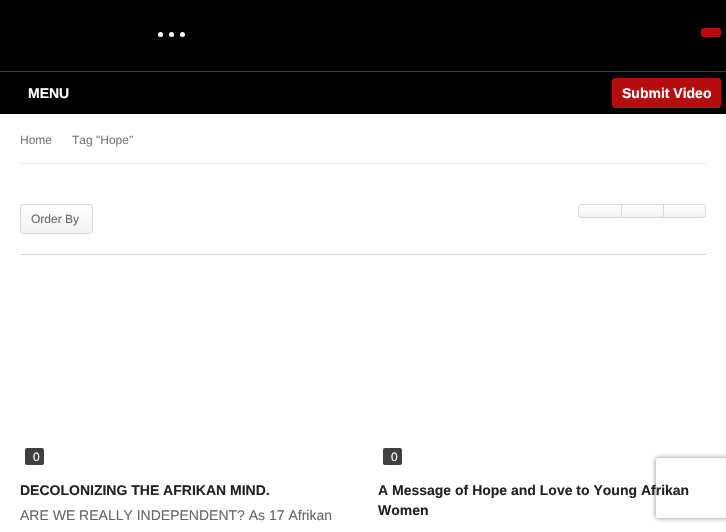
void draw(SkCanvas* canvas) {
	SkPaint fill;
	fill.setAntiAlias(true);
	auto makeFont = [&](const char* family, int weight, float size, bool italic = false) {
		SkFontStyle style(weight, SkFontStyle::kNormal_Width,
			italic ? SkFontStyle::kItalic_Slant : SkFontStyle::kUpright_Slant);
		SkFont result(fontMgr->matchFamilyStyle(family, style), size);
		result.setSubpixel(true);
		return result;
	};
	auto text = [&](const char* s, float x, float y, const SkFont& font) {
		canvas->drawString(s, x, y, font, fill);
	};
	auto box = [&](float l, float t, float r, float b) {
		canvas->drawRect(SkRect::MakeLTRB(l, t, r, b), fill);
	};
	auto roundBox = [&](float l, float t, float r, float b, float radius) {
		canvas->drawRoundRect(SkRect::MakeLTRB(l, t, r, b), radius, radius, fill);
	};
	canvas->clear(0xFFFFFFFF);
	fill.setColor(0xFF000000);
	box(0, 0, 726, 114);
	fill.setColor(0xFFFFFFFF);
	canvas->drawCircle(160.5f, 34.5f, 2.5f, fill);
	canvas->drawCircle(171.5f, 34.5f, 2.5f, fill);
	canvas->drawCircle(182.5f, 34.5f, 2.5f, fill);
	fill.setColor(0xFFB30D0D);
	roundBox(701, 28, 721, 37, 3);
	fill.setColor(0xFF3C3C3C);
	box(0, 71, 726, 72);
	fill.setColor(0xFFB30D0D);
	roundBox(612, 78, 721, 108, 3);
	fill.setColor(0xFFEBEBEB);
	box(20, 163, 706, 164);
	fill.setColor(0xFFD7D7D7);
	box(20, 254, 706, 255);
	canvas->save();
	canvas->clipPath(SkPathBuilder().moveTo(581, 204).lineTo(703, 204).cubicTo(704.5f, 204, 706, 205.5f, 706, 207).lineTo(706, 215).cubicTo(706, 216.5f, 704.5f, 218, 703, 218).lineTo(581, 218).cubicTo(579.5f, 218, 578, 216.5f, 578, 215).lineTo(578, 207).cubicTo(578, 205.5f, 579.5f, 204, 581, 204).close().detach(), true);
	{
		const SkColor colors[] = {0xFFFFFFFF, 0xFFF2F2F2};
		const float stops[] = {0, 1};
		const SkPoint ends[] = {{642, 205}, {642, 217}};
		fill.setShader(SkGradientShader::MakeLinear(ends, colors, stops, 2, SkTileMode::kClamp));
		fill.setAlpha(255);
	}
	box(578, 205, 706, 217);
	canvas->restore();
	fill.setStyle(SkPaint::kStroke_Style);
	fill.setStrokeWidth(1);
	fill.setShader(nullptr);
	fill.setColor(0xFFD7D7D7);
	canvas->drawRoundRect(SkRect::MakeLTRB(578.5f, 204.5f, 705.5f, 217.5f), 2.5f, 2.5f, fill);
	fill.setStyle(SkPaint::kFill_Style);
	box(621, 205, 622, 217);
	box(663, 205, 664, 217);
	canvas->save();
	canvas->clipPath(SkPathBuilder().moveTo(23, 204).lineTo(90, 204).cubicTo(91.5f, 204, 93, 205.5f, 93, 207).lineTo(93, 231).cubicTo(93, 232.5f, 91.5f, 234, 90, 234).lineTo(23, 234).cubicTo(21.5f, 234, 20, 232.5f, 20, 231).lineTo(20, 207).cubicTo(20, 205.5f, 21.5f, 204, 23, 204).close().detach(), true);
	{
		const SkColor colors[] = {0xFFFFFFFF, 0xFFF2F2F2};
		const float stops[] = {0, 1};
		const SkPoint ends[] = {{57, 205}, {57, 233}};
		fill.setShader(SkGradientShader::MakeLinear(ends, colors, stops, 2, SkTileMode::kClamp));
		fill.setAlpha(255);
	}
	box(20, 205, 93, 233);
	canvas->restore();
	fill.setStyle(SkPaint::kStroke_Style);
	fill.setShader(nullptr);
	fill.setColor(0xFFD7D7D7);
	canvas->drawRoundRect(SkRect::MakeLTRB(20.5f, 204.5f, 92.5f, 233.5f), 2.5f, 2.5f, fill);
	fill.setStyle(SkPaint::kFill_Style);
	fill.setColor(0xFF404040);
	roundBox(25, 448, 44, 465, 2);
	roundBox(383, 448, 402, 465, 2);
	canvas->save();
	canvas->clipPath(SkPathBuilder(SkPathFillType::kEvenOdd).moveTo(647, 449).lineTo(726, 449).lineTo(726, 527).lineTo(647, 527).close().moveTo(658, 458).lineTo(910, 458).cubicTo(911, 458, 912, 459, 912, 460).lineTo(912, 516).cubicTo(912, 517, 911, 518, 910, 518).lineTo(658, 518).cubicTo(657, 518, 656, 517, 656, 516).lineTo(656, 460).cubicTo(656, 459, 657, 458, 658, 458).close().detach(), true);
	fill.setColor(0xFF808080);
	fill.setMaskFilter(SkMaskFilter::MakeBlur(kNormal_SkBlurStyle, 2.5f));
	canvas->drawRoundRect(SkRect::MakeLTRB(656, 458, 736, 518), 2, 2, fill);
	fill.setMaskFilter(nullptr);
	canvas->restore();
	auto font1 = makeFont("Liberation Sans", 700, 14);
	fill.setColor(0xFFFFFFFF);
	text("MENU", 28, 98, font1);
	text("Submit Video", 622, 98, font1);
	auto font2 = makeFont("Liberation Sans", 400, 12);
	fill.setColor(0xFF787878);
	text("Home", 20, 144, font2);
	text("Tag \"Hope\"", 72, 144, font2);
	fill.setColor(0xFF666666);
	text("Order By", 31, 223, font2);
	fill.setColor(0xFFFFFFFF);
	text("0", 33, 461, font2);
	fill.setColor(0xFF222222);
	text("DECOLONIZING THE AFRIKAN MIND.", 20, 495, font1);
	auto font3 = makeFont("Liberation Sans", 400, 14);
	fill.setColor(0xFF666666);
	text("ARE WE REALLY INDEPENDENT? As 17 Afrikan", 20, 520, font3);
	fill.setColor(0xFFFFFFFF);
	text("0", 391, 461, font2);
	fill.setColor(0xFF222222);
	text("A Message of Hope and Love to Young Afrikan", 378, 495, font1);
	text("Women", 378, 515, font1);
}
